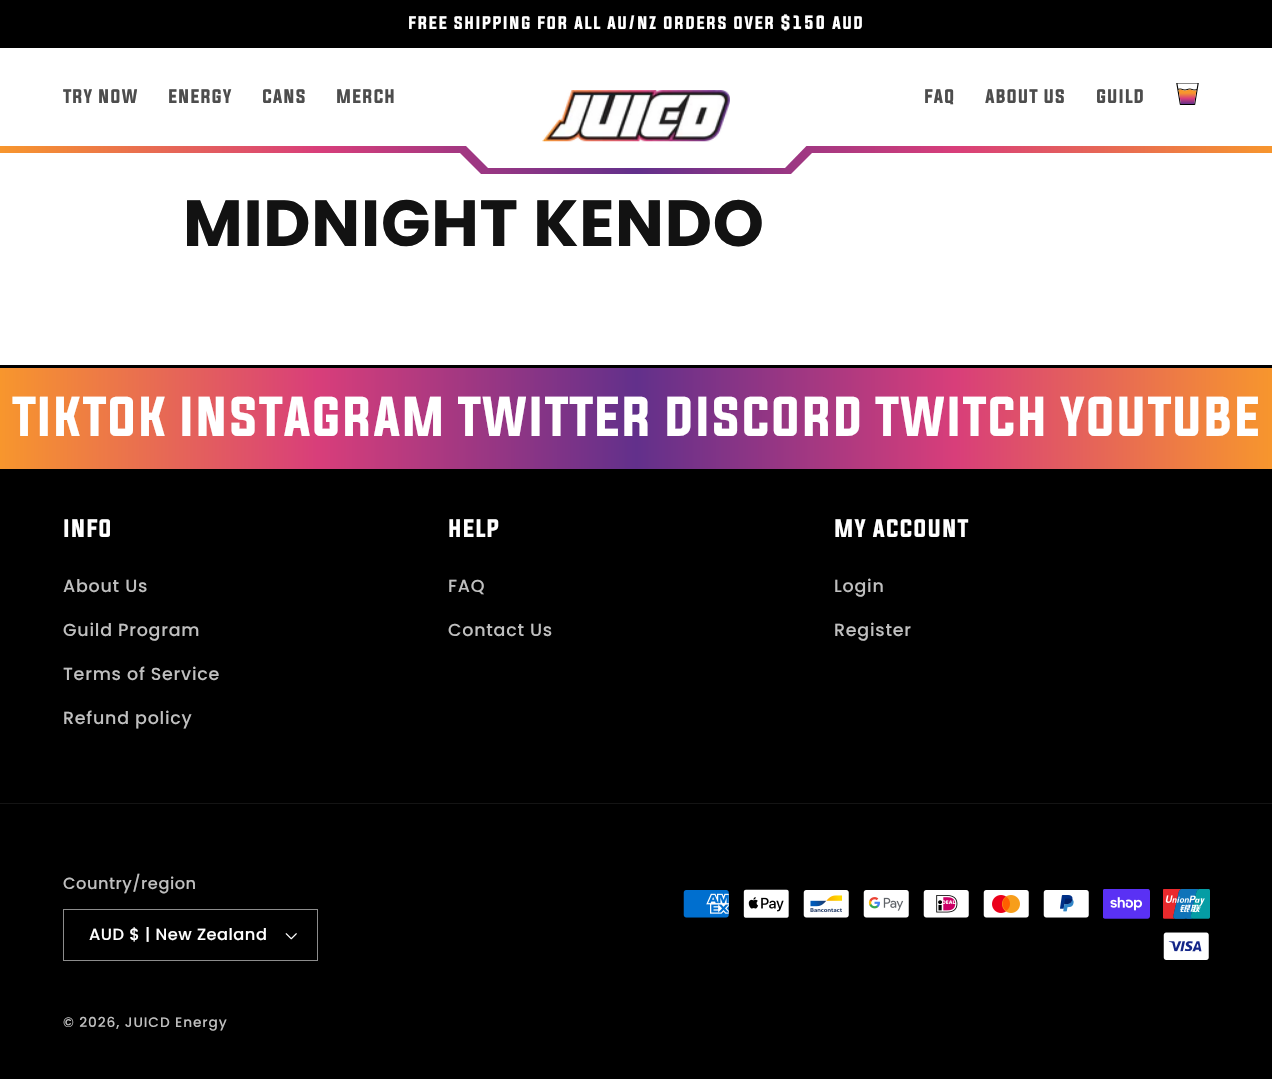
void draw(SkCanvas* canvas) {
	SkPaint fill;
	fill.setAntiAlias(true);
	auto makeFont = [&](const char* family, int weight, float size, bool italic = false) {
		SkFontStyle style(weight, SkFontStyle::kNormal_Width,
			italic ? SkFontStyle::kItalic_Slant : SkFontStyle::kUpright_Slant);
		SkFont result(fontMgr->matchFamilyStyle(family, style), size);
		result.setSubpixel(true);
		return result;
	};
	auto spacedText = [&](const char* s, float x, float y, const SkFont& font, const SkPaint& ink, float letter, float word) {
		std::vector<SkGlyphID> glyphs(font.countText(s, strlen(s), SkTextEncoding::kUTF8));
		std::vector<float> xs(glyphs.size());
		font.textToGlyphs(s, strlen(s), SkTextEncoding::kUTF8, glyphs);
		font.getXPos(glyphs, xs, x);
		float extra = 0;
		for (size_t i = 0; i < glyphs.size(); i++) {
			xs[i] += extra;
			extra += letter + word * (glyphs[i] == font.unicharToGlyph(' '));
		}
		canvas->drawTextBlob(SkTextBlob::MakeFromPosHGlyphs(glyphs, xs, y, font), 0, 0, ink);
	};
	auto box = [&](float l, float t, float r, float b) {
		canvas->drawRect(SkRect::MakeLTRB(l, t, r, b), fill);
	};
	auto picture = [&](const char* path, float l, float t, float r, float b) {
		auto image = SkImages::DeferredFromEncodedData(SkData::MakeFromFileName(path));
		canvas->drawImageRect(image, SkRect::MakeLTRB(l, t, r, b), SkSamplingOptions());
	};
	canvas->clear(0xFFFFFFFF);
	fill.setColor(0xFF000000);
	box(0, 0, 1272, 48);
	{
		const SkColor colors[] = {0xFFF7962D, 0xFFD83E7A, 0xFF62308B, 0xFFD83E7A, 0xFFF7962D};
		const float stops[] = {0, 0.25f, 0.5f, 0.75f, 1};
		const SkPoint ends[] = {{0, 160}, {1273, 160}};
		fill.setShader(SkGradientShader::MakeLinear(ends, colors, stops, 5, SkTileMode::kClamp));
		fill.setAlpha(255);
	}
	canvas->drawPath(SkPathBuilder().moveTo(0, 146).lineTo(0, 153).lineTo(460, 153).lineTo(481, 174).lineTo(791, 174).lineTo(812, 153).lineTo(1272, 153).lineTo(1272, 146).close().detach(), fill);
	fill.setShader(nullptr);
	fill.setColor(0xFFFFFFFF);
	canvas->drawPath(SkPathBuilder().moveTo(450, 130).lineTo(822, 130).lineTo(785, 168).lineTo(488, 168).close().detach(), fill);
	picture("image0.png", 542, 90, 730, 142);
	picture("image1.png", 1176, 83, 1199, 105);
	{
		const SkColor colors[] = {0xFFF7962D, 0xFFD83E7A, 0xFF62308B, 0xFFD83E7A, 0xFFF7962D};
		const float stops[] = {0, 0.25f, 0.5f, 0.75f, 1};
		const SkPoint ends[] = {{0, 418}, {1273, 418}};
		fill.setShader(SkGradientShader::MakeLinear(ends, colors, stops, 5, SkTileMode::kClamp));
		fill.setAlpha(255);
	}
	box(0, 368, 1272, 469);
	fill.setShader(nullptr);
	fill.setColor(0xFF000000);
	box(0, 365, 1272, 368);
	box(0, 469, 1272, 1079);
	fill.setColor(0xFF141414);
	box(0, 803, 1272, 804);
	picture("image2.png", 285, 933, 297, 940);
	fill.setStyle(SkPaint::kStroke_Style);
	fill.setStrokeWidth(1);
	fill.setColor(0xFF8C8C8C);
	canvas->drawRect(SkRect::MakeLTRB(63.5f, 909.5f, 317.5f, 960.5f), fill);
	picture("image3.png", 683, 890, 729, 918);
	picture("image4.png", 743, 889, 789, 918);
	picture("image5.png", 803, 890, 849, 918);
	picture("image6.png", 863, 890, 909, 918);
	picture("image7.png", 923, 890, 969, 918);
	picture("image8.png", 983, 890, 1029, 918);
	picture("image9.png", 1043, 890, 1089, 918);
	picture("image10.png", 1103, 889, 1150, 919);
	picture("image11.png", 1163, 889, 1210, 919);
	picture("image12.png", 1163, 932, 1209, 960);
	auto font1 = makeFont("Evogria", 400, 16.25f);
	fill.setStyle(SkPaint::kFill_Style);
	fill.setColor(0xFFFFFFFF);
	spacedText("free shipping for all au/nz orders over $150 aud", 408, 29, font1, fill, 1.25f, 0);
	auto font2 = makeFont("Evogria", 400, 17.5f);
	fill.setColor(0xFF4D4D4D);
	spacedText("try now", 63, 103, font2, fill, 0.75f, 0);
	spacedText("energy", 168, 103, font2, fill, 0.75f, 0);
	spacedText("cans", 262, 103, font2, fill, 0.75f, 0);
	spacedText("merch", 336, 103, font2, fill, 0.75f, 0);
	spacedText("faq", 924, 103, font2, fill, 0.75f, 0);
	spacedText("about us", 985, 103, font2, fill, 0.75f, 0);
	spacedText("guild", 1096, 103, font2, fill, 0.75f, 0);
	auto font3 = makeFont("Poppins", 700, 65);
	fill.setColor(0xFF121212);
	spacedText("MIDNIGHT KENDO", 183, 246, font3, fill, 0.75f, 0);
	auto font4 = makeFont("Evogria", 400, 50);
	fill.setColor(0xFFFFFFFF);
	spacedText("tiktok", 12, 436, font4, fill, 0.75f, 0);
	spacedText("instagram", 179, 436, font4, fill, 0.75f, 0);
	canvas->save();
	canvas->clipRect(SkRect::MakeLTRB(458, 388, 653, 444));
	spacedText("twitter", 457, 436, font4, fill, 0.75f, 0);
	canvas->restore();
	spacedText("discord", 664, 436, font4, fill, 0.75f, 0);
	spacedText("twitch", 875, 436, font4, fill, 0.75f, 0);
	spacedText("youtube", 1060, 436, font4, fill, 0.75f, 0);
	auto font5 = makeFont("Evogria", 400, 22.5f);
	spacedText("info", 63, 537, font5, fill, 0.75f, 0);
	auto font6 = makeFont("Poppins", 500, 17.5f);
	fill.setColor(0xFFBFBFBF);
	spacedText("About Us", 63, 592, font6, fill, 0.75f, 0);
	spacedText("Guild Program", 63, 636, font6, fill, 0.75f, 0);
	spacedText("Terms of Service", 63, 680, font6, fill, 0.75f, 0);
	spacedText("Refund policy", 63, 724, font6, fill, 0.75f, 0);
	fill.setColor(0xFFFFFFFF);
	spacedText("help", 448, 537, font5, fill, 0.75f, 0);
	fill.setColor(0xFFBFBFBF);
	spacedText("FAQ", 448, 592, font6, fill, 0.75f, 0);
	spacedText("Contact Us", 448, 636, font6, fill, 0.75f, 0);
	fill.setColor(0xFFFFFFFF);
	spacedText("my account", 834, 537, font5, fill, 0.75f, 0);
	fill.setColor(0xFFBFBFBF);
	spacedText("Login", 834, 592, font6, fill, 0.75f, 0);
	spacedText("Register", 834, 636, font6, fill, 0.75f, 0);
	auto font7 = makeFont("Poppins", 500, 16.25f);
	spacedText("Country/region", 63, 889, font7, fill, 0.5f, 0);
	fill.setColor(0xFFFFFFFF);
	spacedText("AUD $ | New Zealand", 89, 940, font7, fill, 0.5f, 0);
	auto font8 = makeFont("Poppins", 500, 13.75f);
	fill.setColor(0xFFBFBFBF);
	spacedText("© 2026, JUICD Energy", 63, 1027, font8, fill, 0.9f, 0);
}
